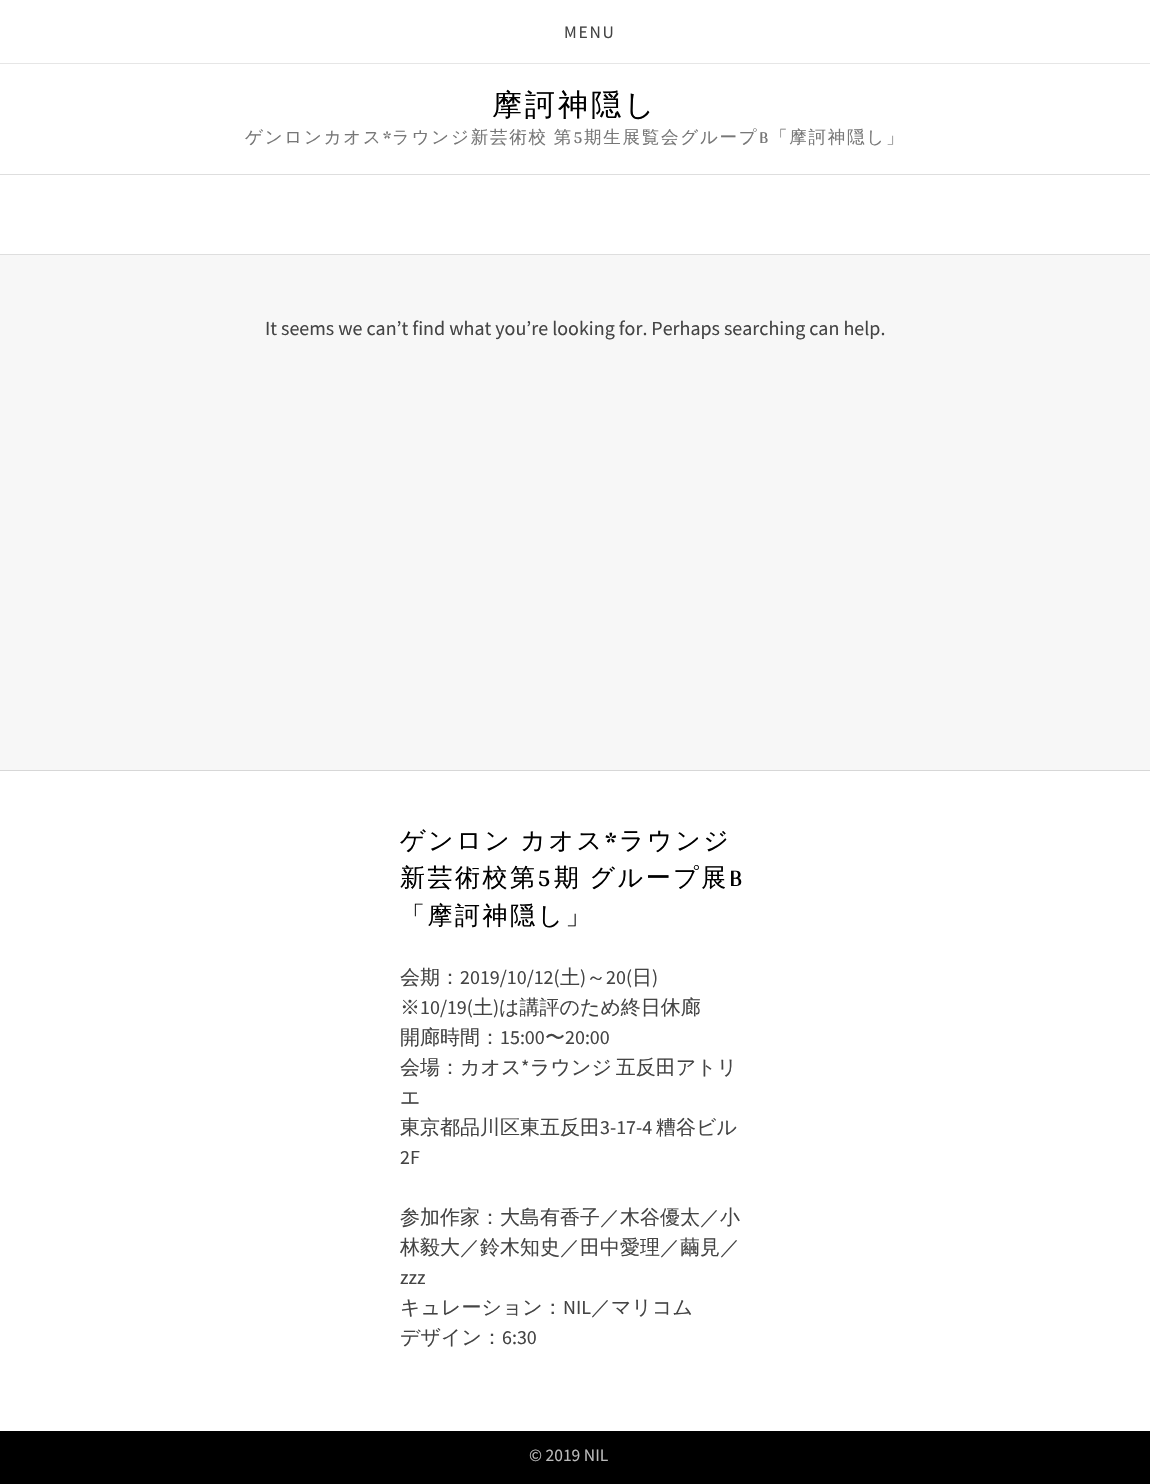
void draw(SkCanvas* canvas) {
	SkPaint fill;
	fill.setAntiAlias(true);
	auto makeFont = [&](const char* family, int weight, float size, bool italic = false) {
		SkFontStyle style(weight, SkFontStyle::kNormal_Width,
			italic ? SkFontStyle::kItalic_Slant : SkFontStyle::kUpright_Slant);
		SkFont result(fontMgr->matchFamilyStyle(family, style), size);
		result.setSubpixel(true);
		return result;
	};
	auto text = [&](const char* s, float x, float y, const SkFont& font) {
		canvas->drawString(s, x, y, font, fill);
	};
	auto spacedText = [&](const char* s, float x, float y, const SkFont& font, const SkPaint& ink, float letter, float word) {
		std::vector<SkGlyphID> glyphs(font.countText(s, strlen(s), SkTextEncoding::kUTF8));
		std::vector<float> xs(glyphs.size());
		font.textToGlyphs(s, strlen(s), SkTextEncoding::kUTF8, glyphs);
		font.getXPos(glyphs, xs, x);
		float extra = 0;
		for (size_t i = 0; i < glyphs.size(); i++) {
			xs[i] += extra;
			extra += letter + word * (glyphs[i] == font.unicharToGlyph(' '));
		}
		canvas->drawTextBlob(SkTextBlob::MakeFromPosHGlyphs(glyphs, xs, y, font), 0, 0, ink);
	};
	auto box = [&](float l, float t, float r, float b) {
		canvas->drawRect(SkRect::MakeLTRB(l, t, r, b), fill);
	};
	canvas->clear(0xFFF7F7F7);
	fill.setColor(0xFFFFFFFF);
	box(0, 0, 1150, 174);
	fill.setColor(0xFFDEDEDE);
	box(0, 174, 1150, 175);
	fill.setColor(0xFFE6E6E6);
	box(0, 63, 1150, 64);
	fill.setColor(0xFFFFFFFF);
	box(0, 175, 1150, 254);
	fill.setColor(0xFFDEDEDE);
	box(0, 254, 1150, 255);
	fill.setColor(0xFFD7D7D7);
	box(0, 770, 1150, 771);
	fill.setColor(0xFFFFFFFF);
	box(0, 771, 1150, 1431);
	fill.setColor(0xFF000000);
	box(0, 1431, 1150, 1484);
	auto font1 = makeFont("Source Sans Pro", 400, 17.5f);
	fill.setColor(0xFF444444);
	spacedText("MENU", 564, 38, font1, fill, 1.75f, 0);
	auto font2 = makeFont("WenQuanYi Zen Hei", 500, 30);
	fill.setColor(0xFF000000);
	spacedText("摩訶神隠し", 492, 115, font2, fill, 3, 0);
	auto font3 = makeFont("WenQuanYi Zen Hei", 500, 17.5f);
	fill.setColor(0xFF777777);
	spacedText("ゲンロンカオス", 245, 143, font3, fill, 1.75f, 0);
	auto font4 = makeFont("Arya", 400, 17.5f);
	spacedText("*", 383, 143, font4, fill, 1.75f, 0);
	spacedText("ラウンジ新芸術校 第", 392, 143, font3, fill, 1.75f, -1);
	spacedText("5", 573, 143, font4, fill, 1.75f, 0);
	spacedText("期生展覧会グループ", 584, 143, font3, fill, 1.75f, 0);
	spacedText("B", 759, 143, font4, fill, 1.75f, 0);
	spacedText("「摩訶神隠し」", 770, 143, font3, fill, 1.75f, 0);
	auto font5 = makeFont("Source Sans Pro", 400, 20);
	fill.setColor(0xFF444444);
	text("It seems we can’t find what you’re looking for. Perhaps searching can help.", 265, 335, font5);
	auto font6 = makeFont("WenQuanYi Zen Hei", 500, 25);
	fill.setColor(0xFF000000);
	spacedText("ゲンロン カオス", 400, 849, font6, fill, 2.5f, -2);
	auto font7 = makeFont("Arya", 400, 25);
	spacedText("*", 605, 849, font7, fill, 2.5f, 0);
	spacedText("ラウンジ", 619, 849, font6, fill, 2.5f, 0);
	spacedText("新芸術校第", 400, 886, font6, fill, 2.5f, 0);
	spacedText("5", 537, 886, font7, fill, 2.5f, 0);
	spacedText("期 グループ展", 554, 886, font6, fill, 2.5f, -2);
	spacedText("B", 729, 886, font7, fill, 2.5f, 0);
	spacedText("「摩訶神隠し」", 400, 924, font6, fill, 2.5f, 0);
	auto font8 = makeFont("WenQuanYi Zen Hei", 500, 20);
	fill.setColor(0xFF444444);
	text("会期：", 400, 984, font8);
	text("2019/10/12(", 460, 984, font5);
	text("土 ～", 560, 984, font8);
	text("日", 632, 984, font8);
	text(")", 580, 984, font5);
	text("20(", 606, 984, font5);
	text(")", 652, 984, font5);
	text("※", 400, 1014, font8);
	text("10/19(", 420, 1014, font5);
	text("土 は講評のため終日休廊", 473, 1014, font8);
	text(")", 493, 1014, font5);
	text("開廊時間：", 400, 1044, font8);
	text("15:00", 500, 1044, font5);
	text("〜", 545, 1044, font8);
	text("20:00", 565, 1044, font5);
	text("会場：カオス", 400, 1074, font8);
	text("*", 521, 1074, font5);
	spacedText("ラウンジ 五反田アトリ", 530, 1074, font8, fill, 0, -2);
	text("エ", 400, 1104, font8);
	text("東京都品川区東五反田", 400, 1134, font8);
	text("3-17-4", 600, 1134, font5);
	text("糟谷ビル", 656, 1134, font8);
	text("2F", 400, 1164, font5);
	text("参加作家：大島有香子／木谷優太／小", 400, 1224, font8);
	text("林毅大／鈴木知史／田中愛理／繭見／", 400, 1254, font8);
	text("zzz", 400, 1284, font5);
	text("キュレーション：", 400, 1314, font8);
	text("NIL", 563, 1314, font5);
	text("／マリコム", 591, 1314, font8);
	text("デザイン：", 400, 1344, font8);
	text("6:30", 502, 1344, font5);
	fill.setColor(0xFFBABABA);
	text("© 2019 NIL", 529, 1461, font1);
}
